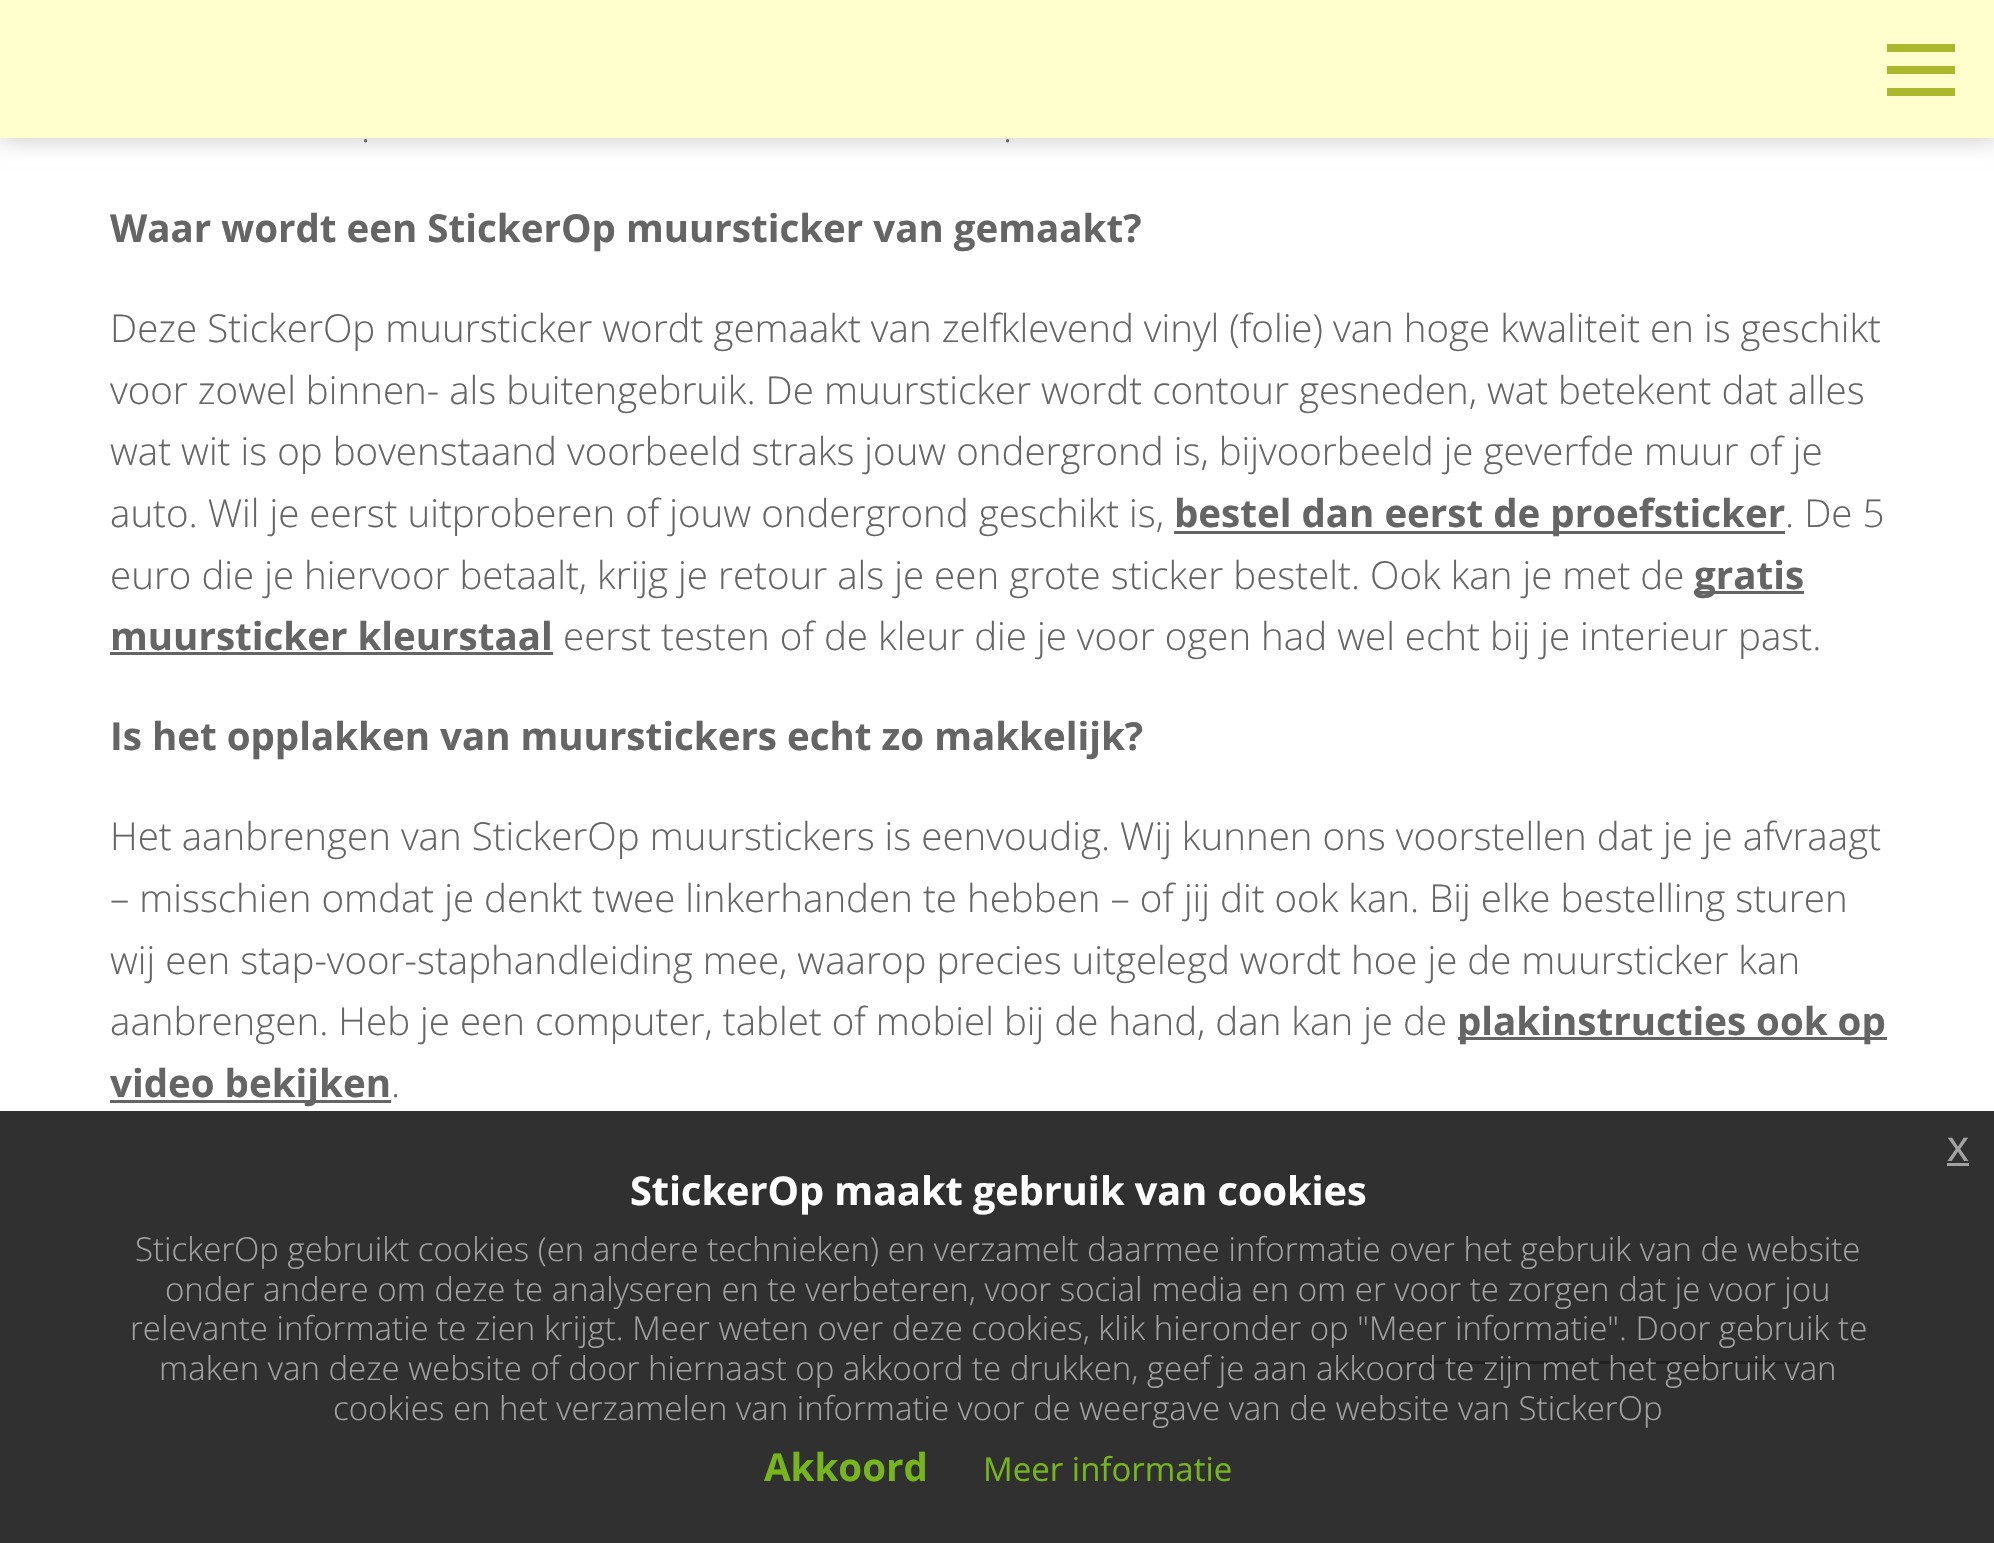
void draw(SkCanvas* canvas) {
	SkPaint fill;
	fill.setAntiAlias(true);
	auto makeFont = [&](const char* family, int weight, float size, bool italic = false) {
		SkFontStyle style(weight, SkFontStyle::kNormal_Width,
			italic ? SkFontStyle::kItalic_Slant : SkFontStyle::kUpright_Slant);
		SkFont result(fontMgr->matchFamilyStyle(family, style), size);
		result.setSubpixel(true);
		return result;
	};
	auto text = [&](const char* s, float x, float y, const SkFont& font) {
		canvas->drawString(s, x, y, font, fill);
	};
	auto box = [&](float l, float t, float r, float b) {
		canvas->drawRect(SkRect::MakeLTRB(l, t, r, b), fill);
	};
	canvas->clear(0xFFFFFFFF);
	fill.setColor(0xFFFFFFCD);
	box(0, 0, 1994, 138);
	canvas->save();
	canvas->clipPath(SkPathBuilder(SkPathFillType::kEvenOdd).moveTo(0, 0).lineTo(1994, 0).lineTo(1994, 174).lineTo(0, 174).close().moveTo(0, 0).lineTo(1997, 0).lineTo(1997, 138).lineTo(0, 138).close().detach(), true);
	fill.setColor(0x33000000);
	fill.setMaskFilter(SkMaskFilter::MakeBlur(kNormal_SkBlurStyle, 11));
	canvas->drawRect(SkRect::MakeLTRB(0, 3, 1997, 140), fill);
	fill.setMaskFilter(nullptr);
	canvas->restore();
	fill.setColor(0xFFABB82E);
	box(1887, 66, 1955, 74);
	box(1887, 44, 1955, 52);
	box(1887, 88, 1955, 96);
	fill.setColor(0xFF656565);
	box(1174, 531, 1785, 534);
	box(1694, 591, 1804, 594);
	box(110, 652, 553, 655);
	box(1458, 1037, 1887, 1040);
	box(110, 1100, 391, 1103);
	box(1392, 1361, 1799, 1364);
	fill.setColor(0xE6191919);
	box(0, 1111, 1994, 1543);
	fill.setColor(0xFFA2A2A2);
	box(1947, 1163, 1969, 1166);
	auto font1 = makeFont("Open Sans", 300, 38.5f);
	fill.setColor(0xFF656565);
	text(".", 361, 142, font1);
	text(".", 1003, 142, font1);
	auto font2 = makeFont("Open Sans", 700, 38.5f);
	text("Waar wordt een StickerOp muursticker van gemaakt?", 110, 242, font2);
	text("Deze StickerOp muursticker wordt gemaakt van zelfklevend vinyl (folie) van hoge kwaliteit en is geschikt", 110, 342, font1);
	text("voor zowel binnen- als buitengebruik. De muursticker wordt contour gesneden, wat betekent dat alles", 110, 404, font1);
	text("wat wit is op bovenstaand voorbeeld straks jouw ondergrond is, bijvoorbeeld je geverfde muur of je", 110, 465, font1);
	text("auto. Wil je eerst uitproberen of jouw ondergrond geschikt is,", 110, 527, font1);
	text("bestel dan eerst de proefsticker", 1174, 527, font2);
	text(". De 5", 1785, 527, font1);
	text("euro die je hiervoor betaalt, krijg je retour als je een grote sticker bestelt. Ook kan je met de", 110, 589, font1);
	text("gratis", 1694, 589, font2);
	text("muursticker kleurstaal", 110, 650, font2);
	text("eerst testen of de kleur die je voor ogen had wel echt bij je interieur past.", 563, 650, font1);
	text("Is het opplakken van muurstickers echt zo makkelijk?", 110, 750, font2);
	text("Het aanbrengen van StickerOp muurstickers is eenvoudig. Wij kunnen ons voorstellen dat je je afvraagt", 110, 850, font1);
	text("– misschien omdat je denkt twee linkerhanden te hebben – of jij dit ook kan. Bij elke bestelling sturen", 110, 912, font1);
	text("wij een stap-voor-staphandleiding mee, waarop precies uitgelegd wordt hoe je de muursticker kan", 110, 974, font1);
	text("aanbrengen. Heb je een computer, tablet of mobiel bij de hand, dan kan je de", 110, 1035, font1);
	text("plakinstructies ook op", 1457, 1035, font2);
	text("video bekijken", 110, 1097, font2);
	text(".", 391, 1097, font1);
	auto font3 = makeFont("Liberation Sans", 400, 44);
	fill.setColor(0xFFA2A2A2);
	text("x", 1947, 1161, font3);
	auto font4 = makeFont("Open Sans", 700, 39.6f);
	fill.setColor(0xFFFFFFFF);
	text("StickerOp maakt gebruik van cookies", 630, 1205, font4);
	auto font5 = makeFont("Open Sans", 300, 33);
	fill.setColor(0xFFA2A2A2);
	text("StickerOp gebruikt cookies (en andere technieken) en verzamelt daarmee informatie over het gebruik van de website", 135, 1261, font5);
	text("onder andere om deze te analyseren en te verbeteren, voor social media en om er voor te zorgen dat je voor jou", 165, 1301, font5);
	text("relevante informatie te zien krijgt. Meer weten over deze cookies, klik hieronder op \"Meer informatie\". Door gebruik te", 130, 1340, font5);
	text("maken van deze website of door hiernaast op akkoord te drukken, geef je aan akkoord te zijn met het gebruik van", 159, 1380, font5);
	text("cookies en het verzamelen van informatie voor de weergave van de website van StickerOp", 333, 1420, font5);
	fill.setColor(0xFF76B51B);
	text("Akkoord", 764, 1481, font2);
	auto font6 = makeFont("Open Sans", 400, 33);
	text("Meer informatie", 983, 1481, font6);
}
